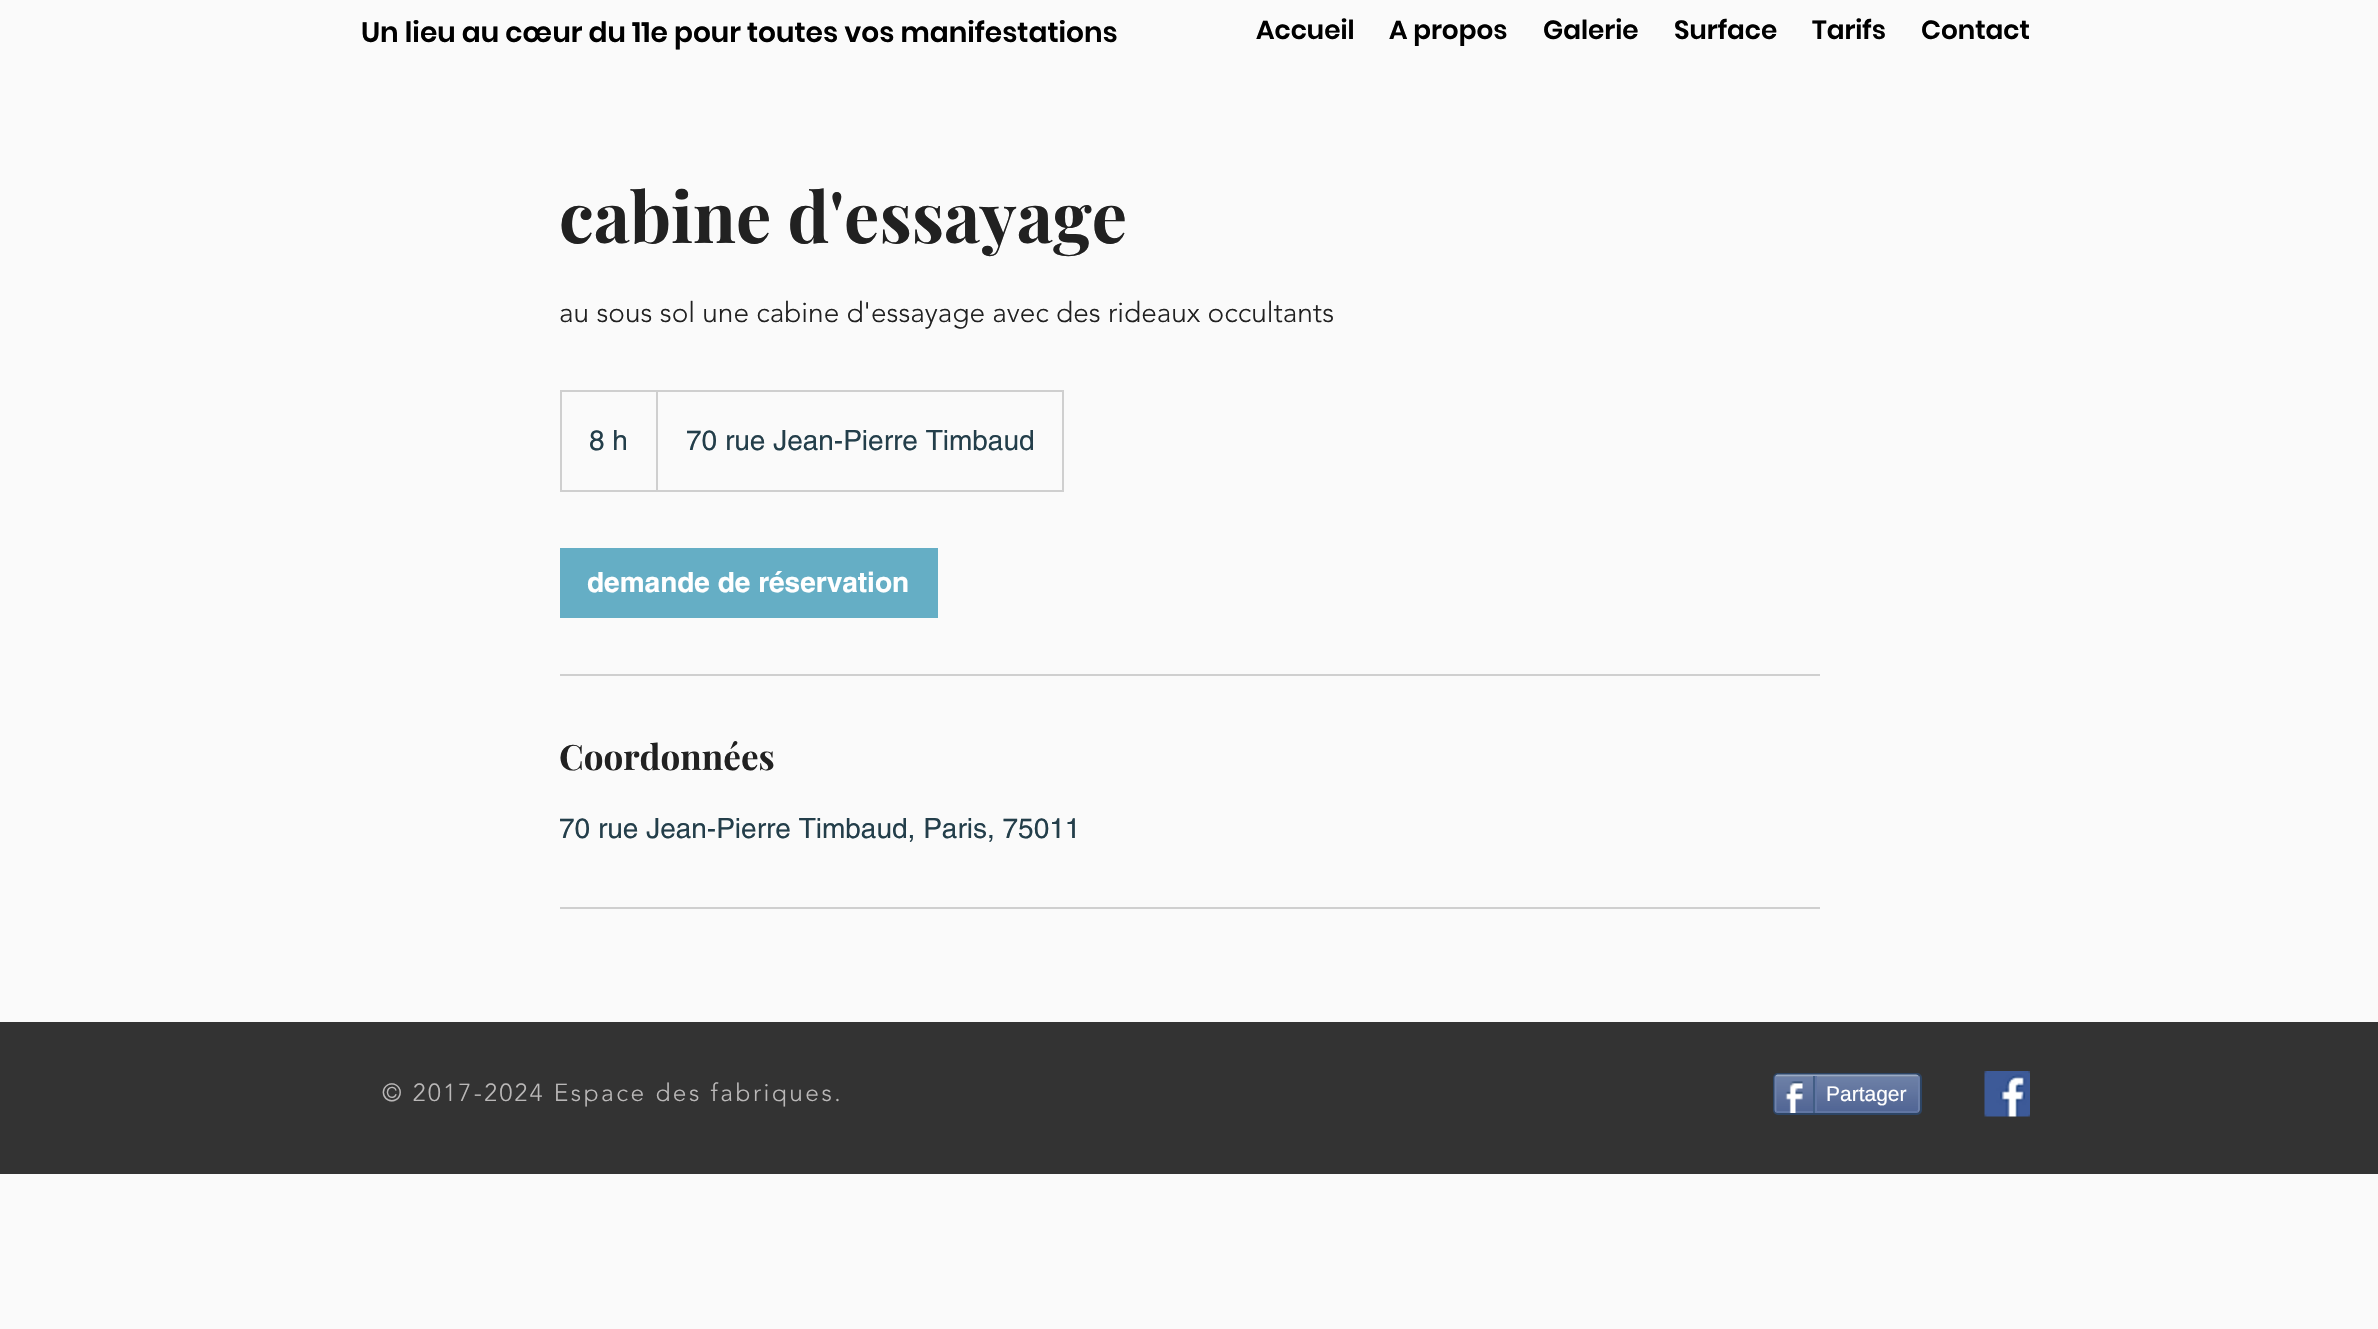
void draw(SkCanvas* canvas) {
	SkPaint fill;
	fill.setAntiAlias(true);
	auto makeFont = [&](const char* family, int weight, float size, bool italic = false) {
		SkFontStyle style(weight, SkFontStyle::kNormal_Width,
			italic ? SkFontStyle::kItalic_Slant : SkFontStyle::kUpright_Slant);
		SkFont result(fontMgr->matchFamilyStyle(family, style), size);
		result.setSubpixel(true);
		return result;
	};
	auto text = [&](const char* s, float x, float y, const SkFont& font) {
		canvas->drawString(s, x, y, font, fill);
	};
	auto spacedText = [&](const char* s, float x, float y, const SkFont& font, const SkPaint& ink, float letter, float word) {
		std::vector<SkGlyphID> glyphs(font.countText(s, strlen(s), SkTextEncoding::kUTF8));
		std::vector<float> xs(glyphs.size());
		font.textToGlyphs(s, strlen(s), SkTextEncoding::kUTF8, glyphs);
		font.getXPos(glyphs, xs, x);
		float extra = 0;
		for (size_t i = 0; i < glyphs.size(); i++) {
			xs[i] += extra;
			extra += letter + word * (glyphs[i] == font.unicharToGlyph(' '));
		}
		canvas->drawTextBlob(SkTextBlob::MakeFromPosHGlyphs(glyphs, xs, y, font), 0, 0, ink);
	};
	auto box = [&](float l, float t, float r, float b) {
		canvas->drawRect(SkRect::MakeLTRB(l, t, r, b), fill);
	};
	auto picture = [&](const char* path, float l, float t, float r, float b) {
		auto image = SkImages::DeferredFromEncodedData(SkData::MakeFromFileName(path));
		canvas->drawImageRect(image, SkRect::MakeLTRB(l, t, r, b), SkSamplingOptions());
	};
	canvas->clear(0xFFFAFAFA);
	fill.setStyle(SkPaint::kStroke_Style);
	fill.setStrokeWidth(2);
	fill.setColor(0xFFCFCFCF);
	canvas->drawRect(SkRect::MakeLTRB(561, 391, 1063, 491), fill);
	canvas->save();
	canvas->clipRect(SkRect::MakeLTRB(562, 392, 1062, 490));
	fill.setStyle(SkPaint::kFill_Style);
	canvas->drawPath(SkPathBuilder().moveTo(656, 490).lineTo(656, 390).lineTo(658, 392).lineTo(658, 490).close().detach(), fill);
	canvas->restore();
	fill.setColor(0xFF65AEC5);
	box(560, 548, 938, 618);
	fill.setColor(0xFFCFCFCF);
	box(560, 674, 1820, 676);
	box(560, 907, 1820, 909);
	fill.setColor(0xFF333333);
	box(0, 1022, 2378, 1174);
	fill.setStyle(SkPaint::kStroke_Style);
	fill.setColor(0xFF2D4565);
	canvas->drawRoundRect(SkRect::MakeLTRB(1774, 1074, 1921, 1114), 4, 4, fill);
	picture("image0.png", 1774, 1076, 1920, 1113);
	fill.setStrokeWidth(1.8f);
	fill.setColor(0xFF9AABC6);
	canvas->drawPath(SkPathBuilder().moveTo(1776, 1076).lineTo(1777.5f, 1075.5f).lineTo(1893, 1075.5f).lineTo(1916, 1075.5f).lineTo(1918, 1076).detach(), fill);
	fill.setColor(0xFF6F83AD);
	canvas->drawPath(SkPathBuilder().moveTo(1918, 1076).cubicTo(1918.5f, 1076.5f, 1919, 1077.5f, 1919, 1078).lineTo(1919, 1109.5f).cubicTo(1919, 1110, 1918.5f, 1111, 1918, 1111.5f).detach(), fill);
	fill.setColor(0xFF6176A3);
	canvas->drawPath(SkPathBuilder().moveTo(1918, 1111.5f).lineTo(1916, 1112).lineTo(1777.5f, 1112).lineTo(1776, 1111.5f).detach(), fill);
	fill.setColor(0xFF6F83AD);
	canvas->drawPath(SkPathBuilder().moveTo(1776, 1111.5f).cubicTo(1775.5f, 1111, 1775.5f, 1110, 1775.5f, 1109.5f).lineTo(1775.5f, 1078).cubicTo(1775.5f, 1077.5f, 1775.5f, 1076.5f, 1776, 1076).detach(), fill);
	picture("image1.png", 1785, 1081, 1803, 1113);
	fill.setStyle(SkPaint::kFill_Style);
	fill.setColor(0xFF425E85);
	box(1813, 1076, 1815, 1113);
	fill.setColor(0xFF6176A3);
	box(1815, 1076, 1817, 1111);
	picture("image2.png", 1984, 1071, 2030, 1117);
	auto font1 = makeFont("Poppins", 600, 28);
	fill.setColor(0xFF000000);
	text("Un lieu au cœur du 11e pour toutes vos manifestations", 361, 42, font1);
	auto font2 = makeFont("Poppins", 600, 26.25f);
	text("Accueil", 1256, 39, font2);
	text("A propos", 1389, 39, font2);
	text("Galerie", 1543, 39, font2);
	text("Surface", 1674, 39, font2);
	text("Tarifs", 1812, 39, font2);
	text("Contact", 1921, 39, font2);
	auto font3 = makeFont("Playfair Display", 700, 70);
	fill.setColor(0xFF212121);
	text("cabine d'essayage", 559, 243, font3);
	auto font4 = makeFont("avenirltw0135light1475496", 300, 28);
	text("au sous sol une cabine d'essayage avec des rideaux occultants", 559, 322, font4);
	auto font5 = makeFont("helvetica", 400, 28);
	fill.setColor(0xFF233E4A);
	text("8 h", 589, 450, font5);
	text("70 rue Jean-Pierre Timbaud", 686, 450, font5);
	auto font6 = makeFont("helvetica", 700, 28);
	fill.setColor(0xFFFFFFFF);
	text("demande de réservation", 587, 592, font6);
	auto font7 = makeFont("Playfair Display", 700, 35);
	fill.setColor(0xFF212121);
	text("Coordonnées", 559, 770, font7);
	fill.setColor(0xFF233E4A);
	text("70 rue Jean-Pierre Timbaud, Paris, 75011", 559, 838, font5);
	auto font8 = makeFont("avenirltw0135light1475496", 300, 24.5f);
	fill.setColor(0xFFBAB8B8);
	spacedText("© 2017-2024 Espace des fabriques.", 382, 1101, font8, fill, 2.45f, 0);
	auto font9 = makeFont("Liberation Sans", 400, 21);
	fill.setColor(0xFFFFFFFF);
	text("Partager", 1826, 1101, font9);
}
